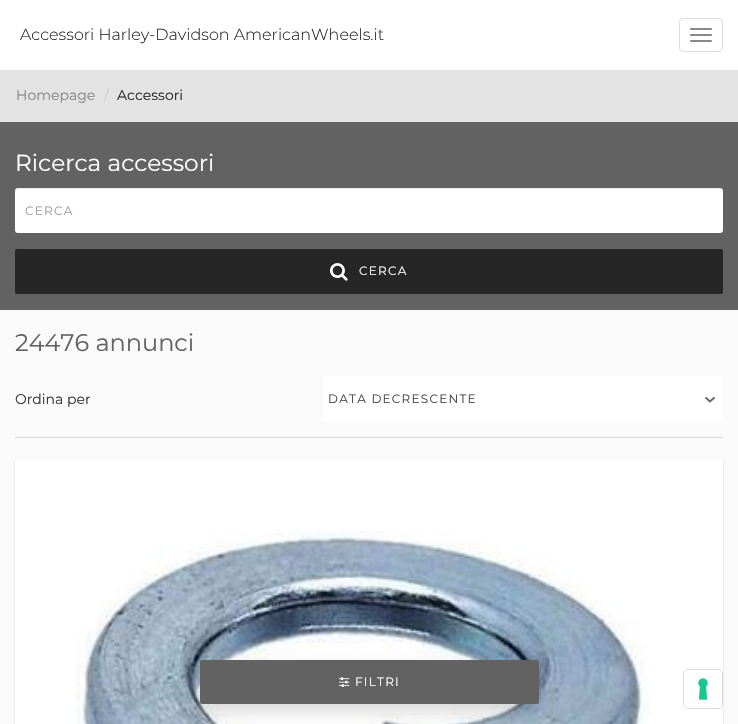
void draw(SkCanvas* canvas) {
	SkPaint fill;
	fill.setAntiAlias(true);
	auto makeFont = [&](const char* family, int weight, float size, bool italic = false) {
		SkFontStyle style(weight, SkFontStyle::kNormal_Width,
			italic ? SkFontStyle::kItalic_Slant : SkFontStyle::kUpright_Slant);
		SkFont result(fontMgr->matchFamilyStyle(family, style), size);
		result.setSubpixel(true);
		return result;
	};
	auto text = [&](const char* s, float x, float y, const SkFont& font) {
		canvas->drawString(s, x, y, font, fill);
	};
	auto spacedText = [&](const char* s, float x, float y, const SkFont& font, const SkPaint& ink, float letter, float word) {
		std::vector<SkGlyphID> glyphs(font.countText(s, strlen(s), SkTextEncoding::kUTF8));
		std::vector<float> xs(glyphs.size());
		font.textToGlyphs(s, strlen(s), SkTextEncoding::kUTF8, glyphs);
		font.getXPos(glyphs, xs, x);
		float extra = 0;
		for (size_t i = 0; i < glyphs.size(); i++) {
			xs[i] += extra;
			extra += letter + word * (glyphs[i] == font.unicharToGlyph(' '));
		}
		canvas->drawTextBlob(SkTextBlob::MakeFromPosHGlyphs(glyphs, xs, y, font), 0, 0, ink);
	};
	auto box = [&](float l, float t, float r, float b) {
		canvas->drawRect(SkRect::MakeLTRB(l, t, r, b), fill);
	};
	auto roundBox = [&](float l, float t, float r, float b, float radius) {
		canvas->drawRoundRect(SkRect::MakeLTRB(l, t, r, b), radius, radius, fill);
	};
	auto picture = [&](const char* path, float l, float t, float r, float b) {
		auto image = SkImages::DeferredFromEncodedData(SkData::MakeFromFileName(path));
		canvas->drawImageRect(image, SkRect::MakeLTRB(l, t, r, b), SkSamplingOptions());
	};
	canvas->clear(0xFFFAFAFA);
	fill.setColor(0xFFFFFFFF);
	box(0, 0, 738, 70);
	fill.setStyle(SkPaint::kStroke_Style);
	fill.setStrokeWidth(1);
	fill.setColor(0xFFDDDDDD);
	canvas->drawRoundRect(SkRect::MakeLTRB(679.5f, 18.5f, 722.5f, 51.5f), 3.5f, 3.5f, fill);
	fill.setStyle(SkPaint::kFill_Style);
	fill.setColor(0xFF888888);
	roundBox(690, 28, 712, 30, 1);
	roundBox(690, 34, 712, 36, 1);
	roundBox(690, 40, 712, 42, 1);
	fill.setColor(0xFFE3E3E3);
	box(0, 70, 738, 122);
	fill.setColor(0xFF626262);
	box(0, 122, 738, 310);
	fill.setColor(0xFFFFFFFF);
	roundBox(15, 188, 723, 233, 3);
	fill.setColor(0x12000000);
	canvas->drawPath(SkPathBuilder().moveTo(18, 189).lineTo(720, 189).cubicTo(722, 189, 723, 190, 723, 192).cubicTo(723, 190, 722, 188, 720, 188).lineTo(18, 188).cubicTo(16, 188, 15, 190, 15, 192).cubicTo(15, 190, 16, 189, 18, 189).close().detach(), fill);
	fill.setColor(0xFF262626);
	roundBox(15, 249, 723, 294, 2);
	picture("image0.png", 330, 263, 348, 281);
	fill.setColor(0xFFD9D9D9);
	box(15, 437, 723, 438);
	fill.setColor(0xFFFFFFFF);
	box(323, 376, 723, 421);
	fill.setStyle(SkPaint::kStroke_Style);
	fill.setStrokeWidth(1.9f);
	fill.setColor(0xFF666666);
	canvas->drawPath(SkPathBuilder().moveTo(705.5f, 397.5f).lineTo(710, 401.5f).lineTo(714.5f, 397.5f).detach(), fill);
	fill.setStyle(SkPaint::kFill_Style);
	fill.setColor(0x26000000);
	fill.setMaskFilter(SkMaskFilter::MakeBlur(kNormal_SkBlurStyle, 1));
	canvas->drawRect(SkRect::MakeLTRB(15, 460, 723, 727), fill);
	fill.setMaskFilter(nullptr);
	fill.setColor(0xFFFFFFFF);
	box(15, 459, 723, 724);
	picture("image1.png", 74, 530, 651, 724);
	fill.setColor(0x26000000);
	fill.setMaskFilter(SkMaskFilter::MakeBlur(kNormal_SkBlurStyle, 8));
	canvas->drawRoundRect(SkRect::MakeLTRB(200, 668, 539, 712), 2, 2, fill);
	fill.setMaskFilter(nullptr);
	fill.setColor(0xFF626262);
	roundBox(200, 660, 539, 704, 2);
	picture("image2.png", 339, 677, 350, 687);
	fill.setStyle(SkPaint::kStroke_Style);
	fill.setStrokeWidth(1);
	fill.setColor(0xFFD9D9D9);
	canvas->drawRoundRect(SkRect::MakeLTRB(683.5f, 669.5f, 722.5f, 708.5f), 4.5f, 4.5f, fill);
	fill.setStyle(SkPaint::kFill_Style);
	fill.setColor(0xFFFFFFFF);
	roundBox(684, 670, 722, 708, 4);
	picture("image3.png", 698, 678, 708, 700);
	auto font1 = makeFont("Montserrat", 300, 16);
	fill.setColor(0xFF262626);
	text("Accessori Harley-Davidson AmericanWheels.it", 20, 40, font1);
	auto font2 = makeFont("Montserrat", 400, 14);
	fill.setColor(0xFF858585);
	text("Homepage", 16, 100, font2);
	fill.setColor(0xFFCCCCCC);
	text("/", 104, 100, font2);
	fill.setColor(0xFF262626);
	text("Accessori", 117, 100, font2);
	auto font3 = makeFont("Montserrat", 400, 23.25f);
	fill.setColor(0xFFFFFFFF);
	text("Ricerca accessori", 15, 171, font3);
	auto font4 = makeFont("Montserrat", 400, 12);
	fill.setColor(0xFF999999);
	spacedText("CERCA", 25, 215, font4, fill, 1.25f, 0);
	fill.setColor(0xFFFFFFFF);
	spacedText("CERCA", 359, 275, font4, fill, 1.25f, 0);
	auto font5 = makeFont("Montserrat", 400, 24);
	fill.setColor(0xFF626262);
	text("24476 annunci", 15, 351, font5);
	fill.setColor(0xFF333333);
	text("Ordina per", 15, 404, font2);
	fill.setColor(0xFF444444);
	spacedText("DATA DECRESCENTE", 328, 403, font4, fill, 1.25f, 0);
	fill.setColor(0xFFFFFFFF);
	spacedText("FILTRI", 355, 686, font4, fill, 1.25f, 0);
}
